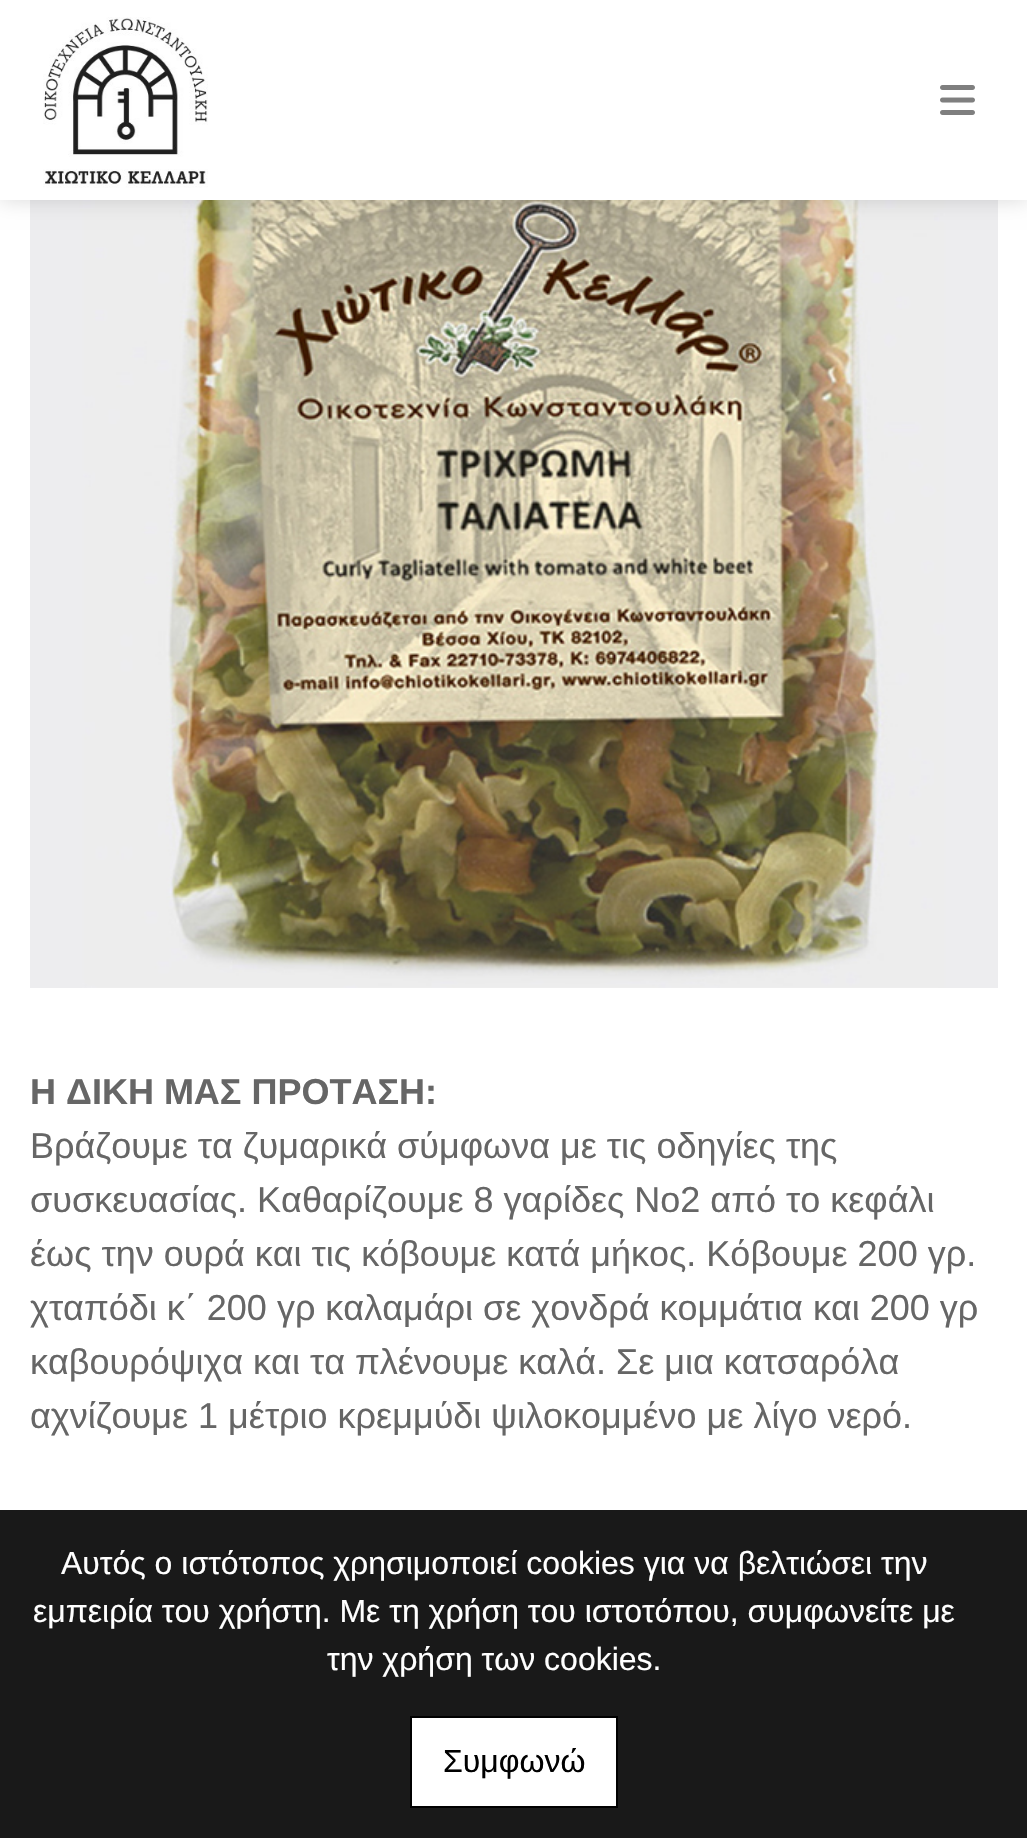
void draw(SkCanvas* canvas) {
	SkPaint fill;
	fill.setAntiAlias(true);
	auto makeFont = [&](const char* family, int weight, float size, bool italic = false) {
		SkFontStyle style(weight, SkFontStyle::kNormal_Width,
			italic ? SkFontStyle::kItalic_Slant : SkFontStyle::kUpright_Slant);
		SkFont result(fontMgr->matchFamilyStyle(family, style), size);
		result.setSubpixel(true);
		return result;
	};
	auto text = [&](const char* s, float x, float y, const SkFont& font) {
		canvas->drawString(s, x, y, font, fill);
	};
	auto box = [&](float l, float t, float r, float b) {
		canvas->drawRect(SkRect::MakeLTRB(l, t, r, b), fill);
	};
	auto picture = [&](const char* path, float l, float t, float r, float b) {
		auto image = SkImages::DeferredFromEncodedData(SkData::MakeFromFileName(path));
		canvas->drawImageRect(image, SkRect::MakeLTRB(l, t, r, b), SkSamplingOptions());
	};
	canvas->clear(0xFFFFFFFF);
	picture("image2.png", 30, 200, 998, 988);
	fill.setColor(0x26000000);
	fill.setMaskFilter(SkMaskFilter::MakeBlur(kNormal_SkBlurStyle, 10));
	canvas->drawRect(SkRect::MakeLTRB(0, 0, 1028, 200), fill);
	fill.setMaskFilter(nullptr);
	fill.setColor(0xFFFFFFFF);
	box(0, 0, 1027, 200);
	picture("image0.png", 43, 17, 208, 188);
	picture("image1.png", 940, 85, 975, 115);
	picture("image3.png", 953, 1744, 967, 1753);
	fill.setColor(0xE6000000);
	box(0, 1510, 1027, 1838);
	fill.setColor(0xFFFFFFFF);
	canvas->drawRect(SkRect::MakeLTRB(411, 1717, 617, 1807), fill);
	fill.setStyle(SkPaint::kStroke_Style);
	fill.setStrokeWidth(2);
	fill.setColor(0xFF000000);
	canvas->drawRect(SkRect::MakeLTRB(411, 1717, 617, 1807), fill);
	auto font1 = makeFont("Arimo", 700, 36);
	fill.setStyle(SkPaint::kFill_Style);
	fill.setColor(0xFF666666);
	text("Η ΔΙΚΗ ΜΑΣ ΠΡΟΤΑΣΗ:", 30, 1104, font1);
	auto font2 = makeFont("Arimo", 400, 36);
	text("Βράζουμε τα ζυμαρικά σύμφωνα με τις οδηγίες της", 30, 1158, font2);
	text("συσκευασίας. Καθαρίζουμε 8 γαρίδες No2 από το κεφάλι", 30, 1212, font2);
	text("έως την ουρά και τις κόβουμε κατά μήκος. Κόβουμε 200 γρ.", 30, 1266, font2);
	text("χταπόδι κ΄ 200 γρ καλαμάρι σε χονδρά κομμάτια και 200 γρ", 30, 1320, font2);
	text("καβουρόψιχα και τα πλένουμε καλά. Σε μια κατσαρόλα", 30, 1374, font2);
	text("αχνίζουμε 1 μέτριο κρεμμύδι ψιλοκομμένο με λίγο νερό.", 30, 1428, font2);
	auto font3 = makeFont("Arimo", 400, 32);
	fill.setColor(0xFFFFFFFF);
	text("Αυτός ο ιστότοπος χρησιμοποιεί cookies για να βελτιώσει την", 61, 1574, font3);
	text("εμπειρία του χρήστη. Με τη χρήση του ιστοτόπου, συμφωνείτε με", 33, 1622, font3);
	text("την χρήση των cookies.", 327, 1670, font3);
	fill.setColor(0xFF000000);
	text("Συμφωνώ", 443, 1772, font3);
}
